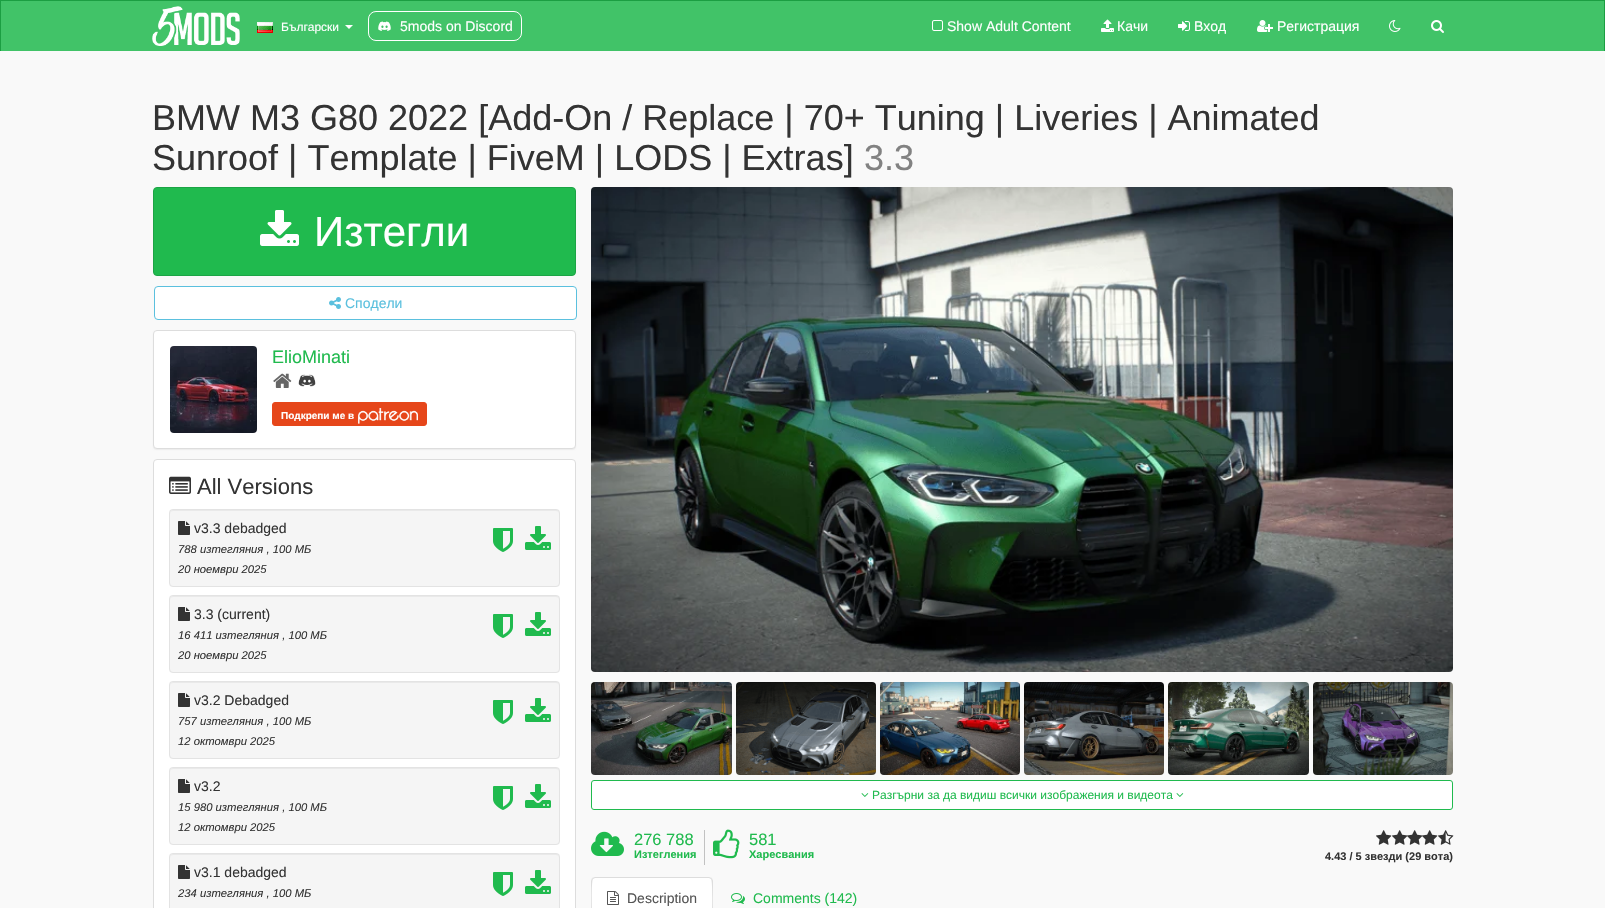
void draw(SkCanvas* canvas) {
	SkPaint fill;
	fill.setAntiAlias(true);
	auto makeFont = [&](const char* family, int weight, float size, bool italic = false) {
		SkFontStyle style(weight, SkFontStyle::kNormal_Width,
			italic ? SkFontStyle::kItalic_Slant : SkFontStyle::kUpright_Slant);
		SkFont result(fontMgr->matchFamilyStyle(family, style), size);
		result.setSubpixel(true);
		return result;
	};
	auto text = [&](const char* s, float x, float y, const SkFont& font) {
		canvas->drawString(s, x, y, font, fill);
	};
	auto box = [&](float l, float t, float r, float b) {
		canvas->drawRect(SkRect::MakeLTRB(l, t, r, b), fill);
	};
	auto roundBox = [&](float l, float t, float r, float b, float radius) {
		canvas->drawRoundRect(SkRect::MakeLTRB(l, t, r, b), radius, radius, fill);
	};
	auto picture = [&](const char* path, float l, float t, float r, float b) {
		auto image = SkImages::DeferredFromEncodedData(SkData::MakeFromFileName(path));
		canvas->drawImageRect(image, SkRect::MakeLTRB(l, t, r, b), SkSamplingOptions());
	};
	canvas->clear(0xFFF9F9F9);
	fill.setColor(0xFF41C368);
	box(1, 1, 1604, 51);
	fill.setColor(0xFF1B9E42);
	box(0, 0, 1605, 1);
	box(1604, 0, 1605, 51);
	box(0, 0, 1, 51);
	picture("image0.png", 152, 6, 240, 46);
	picture("image1.png", 257, 22, 273, 33);
	fill.setColor(0xFFFFFFFF);
	canvas->drawPath(SkPathBuilder().moveTo(345, 25).lineTo(353, 25).lineTo(349, 29).close().detach(), fill);
	fill.setStyle(SkPaint::kStroke_Style);
	fill.setStrokeWidth(1);
	canvas->drawRoundRect(SkRect::MakeLTRB(368.5f, 11.5f, 521.5f, 40.5f), 7.5f, 7.5f, fill);
	picture("image2.png", 378, 21, 391, 31);
	picture("image3.png", 932, 20, 943, 31);
	picture("image4.png", 1101, 19, 1114, 32);
	picture("image5.png", 1178, 21, 1190, 31);
	picture("image6.png", 1257, 20, 1273, 32);
	picture("image7.png", 1389, 20, 1401, 32);
	picture("image8.png", 1431, 20, 1444, 33);
	fill.setStyle(SkPaint::kFill_Style);
	fill.setColor(0xFF20BA4E);
	canvas->drawRoundRect(SkRect::MakeLTRB(153.5f, 187.5f, 575.5f, 275.5f), 3.5f, 3.5f, fill);
	fill.setStyle(SkPaint::kStroke_Style);
	fill.setColor(0xFF1CA445);
	canvas->drawRoundRect(SkRect::MakeLTRB(153.5f, 187.5f, 575.5f, 275.5f), 3.5f, 3.5f, fill);
	picture("image9.png", 260, 210, 299, 246);
	fill.setStyle(SkPaint::kFill_Style);
	fill.setColor(0xFFFFFFFF);
	canvas->drawRoundRect(SkRect::MakeLTRB(154.5f, 286.5f, 576.5f, 319.5f), 3.5f, 3.5f, fill);
	fill.setStyle(SkPaint::kStroke_Style);
	fill.setColor(0xFF5BC0DE);
	canvas->drawRoundRect(SkRect::MakeLTRB(154.5f, 286.5f, 576.5f, 319.5f), 3.5f, 3.5f, fill);
	picture("image10.png", 329, 297, 341, 309);
	fill.setStyle(SkPaint::kFill_Style);
	fill.setColor(0x0D000000);
	fill.setMaskFilter(SkMaskFilter::MakeBlur(kNormal_SkBlurStyle, 0.5f));
	canvas->drawRoundRect(SkRect::MakeLTRB(153, 331, 576, 450), 4, 4, fill);
	fill.setMaskFilter(nullptr);
	fill.setColor(0xFFFFFFFF);
	canvas->drawRoundRect(SkRect::MakeLTRB(153.5f, 330.5f, 575.5f, 448.5f), 3.5f, 3.5f, fill);
	fill.setStyle(SkPaint::kStroke_Style);
	fill.setColor(0xFFDDDDDD);
	canvas->drawRoundRect(SkRect::MakeLTRB(153.5f, 330.5f, 575.5f, 448.5f), 3.5f, 3.5f, fill);
	picture("image11.png", 170, 346, 257, 433);
	picture("image12.png", 273, 373, 292, 388);
	picture("image13.png", 298, 374, 316, 387);
	fill.setStyle(SkPaint::kFill_Style);
	fill.setColor(0xFFE6461A);
	canvas->drawRoundRect(SkRect::MakeLTRB(272.5f, 402.5f, 426.5f, 425.5f), 2.5f, 2.5f, fill);
	fill.setStyle(SkPaint::kStroke_Style);
	canvas->drawRoundRect(SkRect::MakeLTRB(272.5f, 402.5f, 426.5f, 425.5f), 2.5f, 2.5f, fill);
	picture("image14.png", 358, 408, 418, 424);
	fill.setStyle(SkPaint::kFill_Style);
	fill.setColor(0xFFFFFFFF);
	canvas->drawRoundRect(SkRect::MakeLTRB(153.5f, 459.5f, 575.5f, 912.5f), 3.5f, 3.5f, fill);
	fill.setStyle(SkPaint::kStroke_Style);
	fill.setColor(0xFFDDDDDD);
	canvas->drawRoundRect(SkRect::MakeLTRB(153.5f, 459.5f, 575.5f, 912.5f), 3.5f, 3.5f, fill);
	picture("image15.png", 169, 476, 191, 494);
	fill.setStyle(SkPaint::kFill_Style);
	fill.setColor(0xFFF5F5F5);
	roundBox(169, 509, 560, 587, 4);
	fill.setColor(0xFFE9E9E9);
	canvas->drawPath(SkPathBuilder().moveTo(173, 511).lineTo(556, 511).cubicTo(558, 511, 559, 512, 559, 514).cubicTo(559, 512, 558, 510, 556, 510).lineTo(173, 510).lineTo(171, 511).lineTo(170, 514).cubicTo(170, 512, 171, 511, 173, 511).close().detach(), fill);
	fill.setStyle(SkPaint::kStroke_Style);
	fill.setColor(0xFFE3E3E3);
	canvas->drawRoundRect(SkRect::MakeLTRB(169.5f, 509.5f, 559.5f, 586.5f), 3.5f, 3.5f, fill);
	picture("image16.png", 178, 521, 190, 535);
	picture("image17.png", 493, 528, 513, 552);
	picture("image18.png", 525, 526, 551, 550);
	fill.setStyle(SkPaint::kFill_Style);
	fill.setColor(0xFFF5F5F5);
	roundBox(169, 595, 560, 673, 4);
	fill.setColor(0xFFE9E9E9);
	canvas->drawPath(SkPathBuilder().moveTo(173, 597).lineTo(556, 597).cubicTo(558, 597, 559, 598, 559, 600).cubicTo(559, 598, 558, 596, 556, 596).lineTo(173, 596).lineTo(171, 597).lineTo(170, 600).cubicTo(170, 598, 171, 597, 173, 597).close().detach(), fill);
	fill.setStyle(SkPaint::kStroke_Style);
	fill.setColor(0xFFE3E3E3);
	canvas->drawRoundRect(SkRect::MakeLTRB(169.5f, 595.5f, 559.5f, 672.5f), 3.5f, 3.5f, fill);
	picture("image16.png", 178, 607, 190, 621);
	picture("image17.png", 493, 614, 513, 638);
	picture("image18.png", 525, 612, 551, 636);
	fill.setStyle(SkPaint::kFill_Style);
	fill.setColor(0xFFF5F5F5);
	roundBox(169, 681, 560, 759, 4);
	fill.setColor(0xFFE9E9E9);
	canvas->drawPath(SkPathBuilder().moveTo(173, 683).lineTo(556, 683).cubicTo(558, 683, 559, 684, 559, 686).cubicTo(559, 684, 558, 682, 556, 682).lineTo(173, 682).lineTo(171, 683).lineTo(170, 686).cubicTo(170, 684, 171, 683, 173, 683).close().detach(), fill);
	fill.setStyle(SkPaint::kStroke_Style);
	fill.setColor(0xFFE3E3E3);
	canvas->drawRoundRect(SkRect::MakeLTRB(169.5f, 681.5f, 559.5f, 758.5f), 3.5f, 3.5f, fill);
	picture("image16.png", 178, 693, 190, 707);
	picture("image17.png", 493, 700, 513, 724);
	picture("image18.png", 525, 698, 551, 722);
	fill.setStyle(SkPaint::kFill_Style);
	fill.setColor(0xFFF5F5F5);
	roundBox(169, 767, 560, 845, 4);
	fill.setColor(0xFFE9E9E9);
	canvas->drawPath(SkPathBuilder().moveTo(173, 769).lineTo(556, 769).cubicTo(558, 769, 559, 770, 559, 772).cubicTo(559, 770, 558, 768, 556, 768).lineTo(173, 768).lineTo(171, 769).lineTo(170, 772).cubicTo(170, 770, 171, 769, 173, 769).close().detach(), fill);
	fill.setStyle(SkPaint::kStroke_Style);
	fill.setColor(0xFFE3E3E3);
	canvas->drawRoundRect(SkRect::MakeLTRB(169.5f, 767.5f, 559.5f, 844.5f), 3.5f, 3.5f, fill);
	picture("image16.png", 178, 779, 190, 793);
	picture("image17.png", 493, 786, 513, 810);
	picture("image18.png", 525, 784, 551, 808);
	fill.setStyle(SkPaint::kFill_Style);
	fill.setColor(0xFFF5F5F5);
	roundBox(169, 853, 560, 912, 4);
	fill.setColor(0xFFE9E9E9);
	canvas->drawPath(SkPathBuilder().moveTo(173, 855).lineTo(556, 855).cubicTo(558, 855, 559, 856, 559, 858).cubicTo(559, 856, 558, 854, 556, 854).lineTo(173, 854).lineTo(171, 855).lineTo(170, 858).cubicTo(170, 856, 171, 855, 173, 855).close().detach(), fill);
	fill.setStyle(SkPaint::kStroke_Style);
	fill.setColor(0xFFE3E3E3);
	canvas->drawRoundRect(SkRect::MakeLTRB(169.5f, 853.5f, 559.5f, 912.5f), 3.5f, 3.5f, fill);
	picture("image16.png", 178, 865, 190, 879);
	picture("image17.png", 493, 872, 513, 896);
	picture("image18.png", 525, 870, 551, 894);
	picture("image19.png", 591, 187, 1453, 672);
	picture("image20.png", 591, 682, 732, 775);
	picture("image21.png", 736, 682, 876, 775);
	picture("image22.png", 880, 682, 1020, 775);
	picture("image23.png", 1024, 682, 1164, 775);
	picture("image24.png", 1168, 682, 1309, 775);
	picture("image25.png", 1313, 682, 1453, 775);
	fill.setStyle(SkPaint::kFill_Style);
	fill.setColor(0xFFFFFFFF);
	canvas->drawRoundRect(SkRect::MakeLTRB(591.5f, 780.5f, 1452.5f, 809.5f), 2.5f, 2.5f, fill);
	fill.setStyle(SkPaint::kStroke_Style);
	fill.setColor(0xFF20BA4E);
	canvas->drawRoundRect(SkRect::MakeLTRB(591.5f, 780.5f, 1452.5f, 809.5f), 2.5f, 2.5f, fill);
	picture("image26.png", 861, 793, 869, 797);
	picture("image26.png", 1176, 793, 1184, 797);
	picture("image27.png", 591, 831, 624, 856);
	fill.setStyle(SkPaint::kFill_Style);
	fill.setColor(0xFFC2C2C2);
	box(704, 830, 705, 865);
	picture("image28.png", 713, 829, 740, 859);
	picture("image29.png", 1376, 830, 1392, 845);
	picture("image29.png", 1392, 830, 1408, 845);
	picture("image30.png", 1407, 830, 1423, 845);
	picture("image30.png", 1422, 830, 1438, 845);
	picture("image31.png", 1438, 830, 1454, 845);
	fill.setColor(0xFFFFFFFF);
	canvas->drawPath(SkPathBuilder().moveTo(595, 877).lineTo(709, 877).cubicTo(711, 877, 713, 879, 713, 881).lineTo(713, 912).lineTo(591, 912).lineTo(591, 881).cubicTo(591, 879, 593, 877, 595, 877).close().detach(), fill);
	fill.setColor(0xFFDDDDDD);
	canvas->drawPath(SkPathBuilder().moveTo(595, 877).lineTo(592, 878).lineTo(593, 879).lineTo(595, 878).lineTo(709, 878).lineTo(711, 879).lineTo(712, 878).lineTo(709, 877).close().detach(), fill);
	canvas->drawPath(SkPathBuilder().moveTo(713, 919).lineTo(713, 881).cubicTo(713, 880, 712, 879, 712, 878).lineTo(711, 879).cubicTo(713, 881, 712, 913, 712, 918).close().detach(), fill);
	canvas->drawPath(SkPathBuilder().moveTo(591, 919).lineTo(592, 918).cubicTo(592, 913, 591, 881, 593, 879).lineTo(592, 878).lineTo(591, 881).close().detach(), fill);
	picture("image32.png", 607, 891, 619, 905);
	picture("image33.png", 731, 893, 745, 904);
	auto font1 = makeFont("Liberation Sans", 400, 12);
	fill.setColor(0xFFFFFFFF);
	text("Български", 281, 31, font1);
	auto font2 = makeFont("Liberation Sans", 400, 14);
	text("5mods on Discord", 400, 31, font2);
	text("Show Adult Content", 947, 31, font2);
	text("Качи", 1117, 31, font2);
	text("Вход", 1194, 31, font2);
	text("Регистрация", 1277, 31, font2);
	auto font3 = makeFont("Liberation Sans", 400, 36);
	fill.setColor(0xFF333333);
	text("BMW M3 G80 2022 [Add-On / Replace | 70+ Tuning | Liveries | Animated", 152, 130, font3);
	text("Sunroof | Template | FiveM | LODS | Extras]", 152, 170, font3);
	fill.setColor(0xFF828282);
	text("3.3", 864, 170, font3);
	auto font4 = makeFont("Liberation Sans", 400, 42);
	fill.setColor(0xFFFFFFFF);
	text("Изтегли", 314, 246, font4);
	fill.setColor(0xFF5BC0DE);
	text("Сподели", 345, 308, font2);
	auto font5 = makeFont("Liberation Sans", 400, 18);
	fill.setColor(0xFF20BA4E);
	text("ElioMinati", 272, 363, font5);
	auto font6 = makeFont("Liberation Sans", 700, 10);
	fill.setColor(0xFFFFFFFF);
	text("Подкрепи ме в", 281, 419, font6);
	auto font7 = makeFont("Liberation Sans", 400, 22);
	fill.setColor(0xFF333333);
	text("All Versions", 197, 494, font7);
	text("v3.3 debadged", 194, 533, font2);
	auto font8 = makeFont("Liberation Sans", 400, 11.25f, true);
	text("788 изтегляния , 100 МБ", 178, 553, font8);
	text("20 ноември 2025", 178, 573, font8);
	text("3.3 (current)", 194, 619, font2);
	text("16 411 изтегляния , 100 МБ", 178, 639, font8);
	text("20 ноември 2025", 178, 659, font8);
	text("v3.2 Debadged", 194, 705, font2);
	text("757 изтегляния , 100 МБ", 178, 725, font8);
	text("12 октомври 2025", 178, 745, font8);
	text("v3.2", 194, 791, font2);
	text("15 980 изтегляния , 100 МБ", 178, 811, font8);
	text("12 октомври 2025", 178, 831, font8);
	text("v3.1 debadged", 194, 877, font2);
	text("234 изтегляния , 100 МБ", 178, 897, font8);
	fill.setColor(0xFF20BA4E);
	text("Разгърни за да видиш всички изображения и видеота", 872, 799, font1);
	auto font9 = makeFont("Liberation Sans", 400, 16.5f);
	text("276 788", 634, 845, font9);
	auto font10 = makeFont("Liberation Sans", 700, 11);
	text("Изтегления", 634, 858, font10);
	text("581", 749, 845, font9);
	text("Харесвания", 749, 858, font10);
	fill.setColor(0xFF333333);
	text("4.43 / 5 звезди (29 вота)", 1325, 860, font10);
	fill.setColor(0xFF555555);
	text("Description", 627, 903, font2);
	fill.setColor(0xFF20BA4E);
	text("Comments (142)", 753, 903, font2);
}
